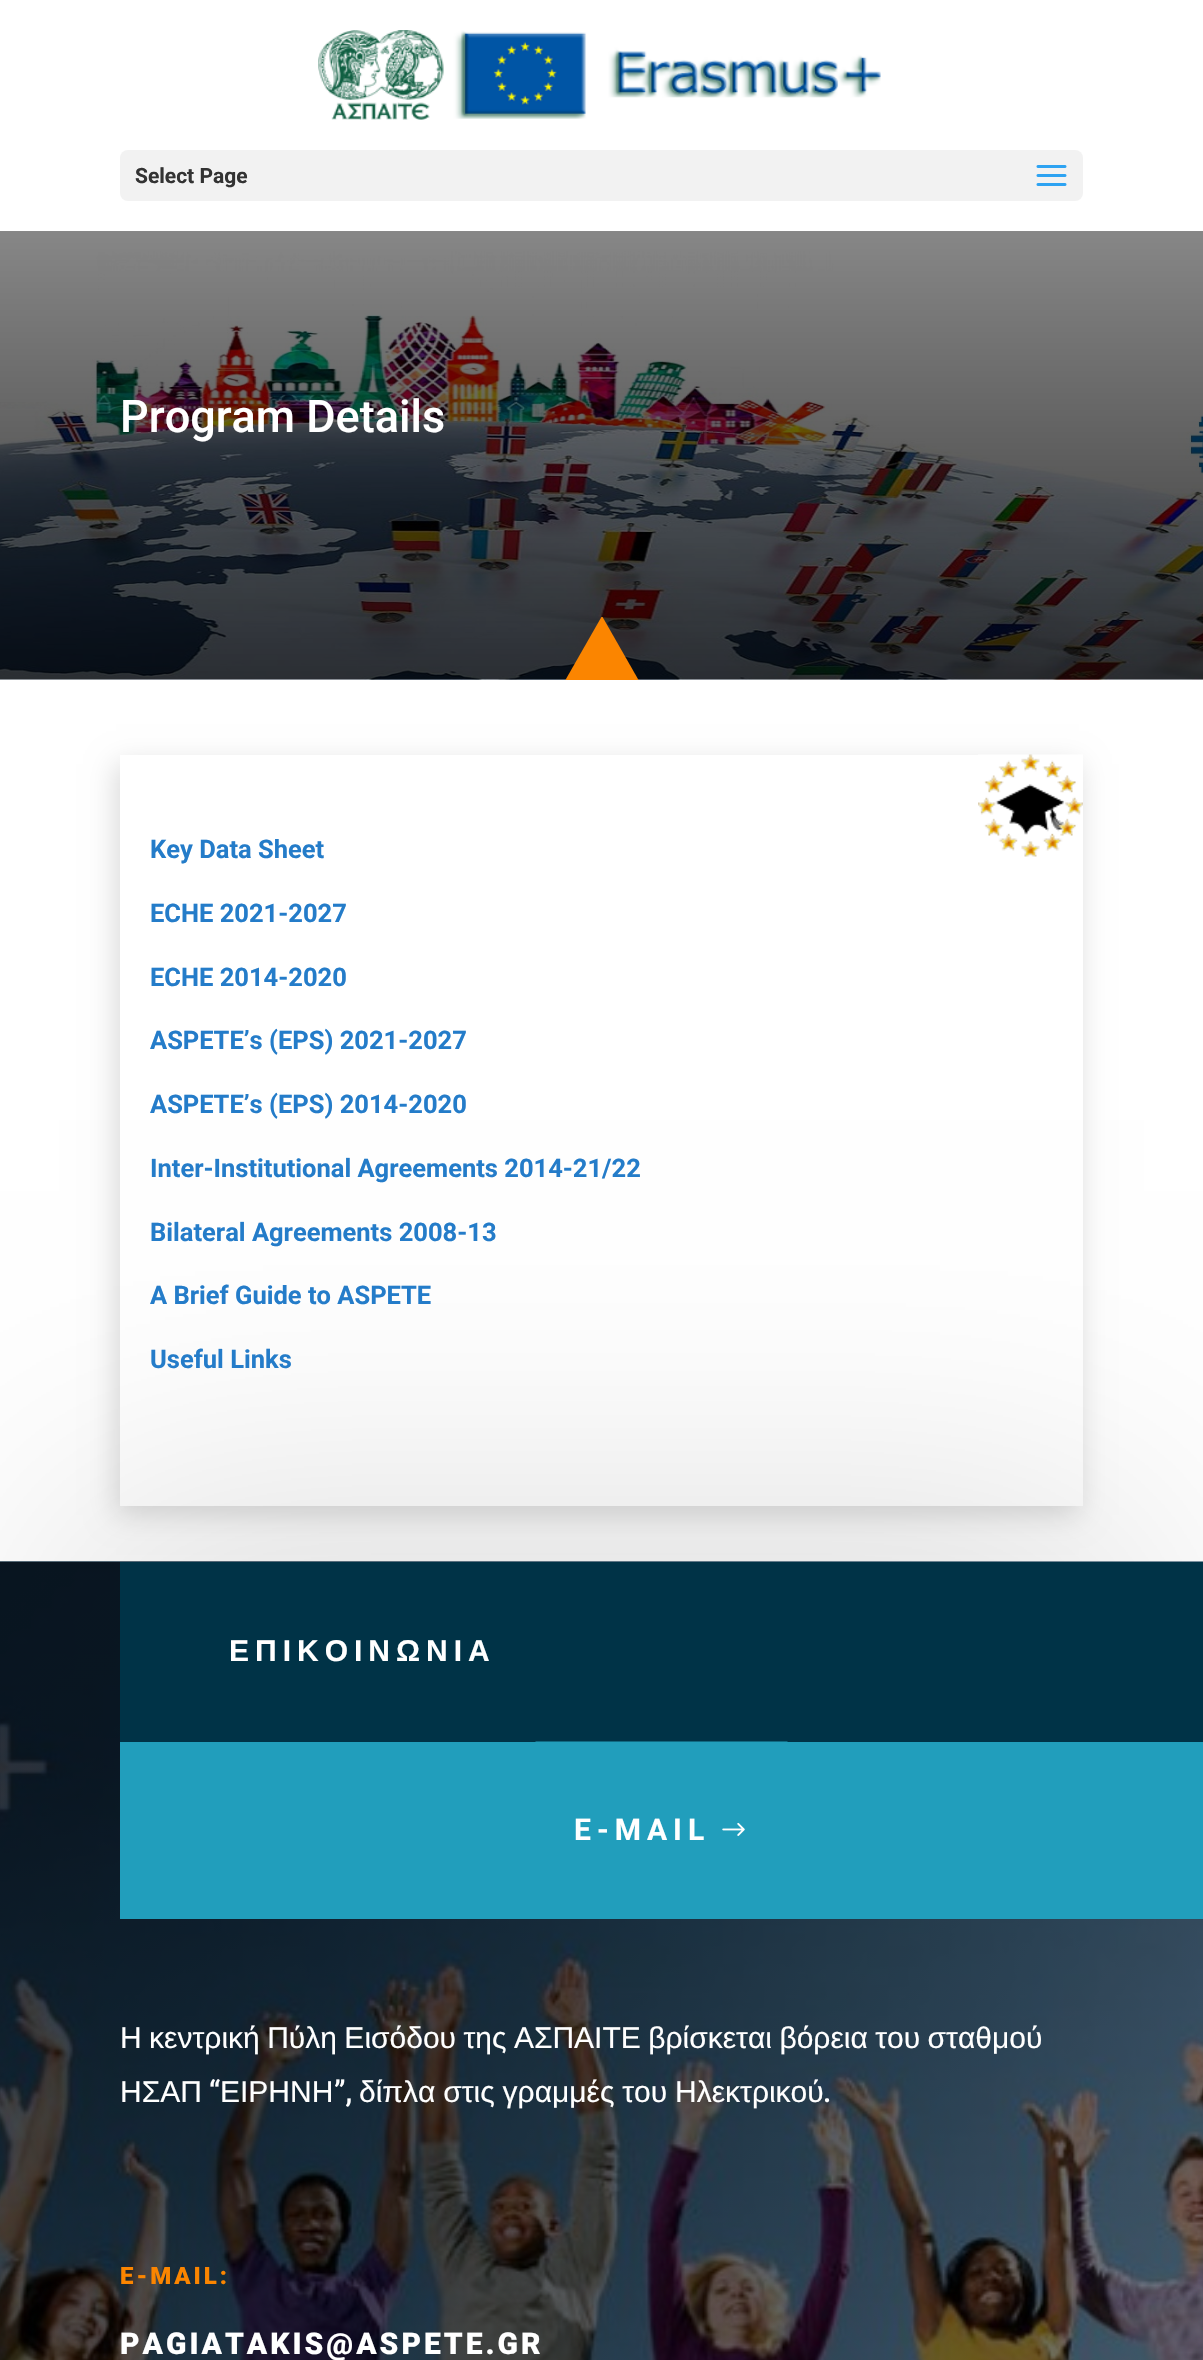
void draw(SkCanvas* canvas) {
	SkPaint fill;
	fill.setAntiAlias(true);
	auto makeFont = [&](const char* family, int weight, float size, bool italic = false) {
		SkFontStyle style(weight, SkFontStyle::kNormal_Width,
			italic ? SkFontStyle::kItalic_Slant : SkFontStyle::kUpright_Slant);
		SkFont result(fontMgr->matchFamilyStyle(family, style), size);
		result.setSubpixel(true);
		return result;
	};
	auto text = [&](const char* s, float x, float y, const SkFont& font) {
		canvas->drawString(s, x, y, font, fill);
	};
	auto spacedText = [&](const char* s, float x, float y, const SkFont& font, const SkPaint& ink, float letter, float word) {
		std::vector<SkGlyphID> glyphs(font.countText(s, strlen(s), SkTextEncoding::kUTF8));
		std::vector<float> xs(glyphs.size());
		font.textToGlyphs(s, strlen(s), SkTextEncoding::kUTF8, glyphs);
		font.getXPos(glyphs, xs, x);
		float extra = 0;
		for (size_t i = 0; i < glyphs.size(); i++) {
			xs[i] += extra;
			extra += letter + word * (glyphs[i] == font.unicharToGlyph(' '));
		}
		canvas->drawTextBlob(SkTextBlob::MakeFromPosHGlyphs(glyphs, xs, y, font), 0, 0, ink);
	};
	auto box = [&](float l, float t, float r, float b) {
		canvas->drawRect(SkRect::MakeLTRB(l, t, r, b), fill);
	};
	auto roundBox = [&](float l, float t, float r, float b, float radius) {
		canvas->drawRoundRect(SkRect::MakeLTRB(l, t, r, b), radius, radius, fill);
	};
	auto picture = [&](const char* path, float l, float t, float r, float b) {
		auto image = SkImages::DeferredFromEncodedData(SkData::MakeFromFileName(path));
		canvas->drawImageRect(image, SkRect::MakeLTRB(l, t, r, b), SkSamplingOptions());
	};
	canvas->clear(0xFFFFFFFF);
	picture("image0.png", 318, 30, 881, 120);
	fill.setColor(0xFFF2F2F2);
	roundBox(120, 150, 1083, 201, 8);
	picture("image1.png", 1036, 165, 1067, 186);
	picture("image2.png", 0, 231, 1203, 680);
	canvas->save();
	canvas->clipRect(SkRect::MakeLTRB(0, 617, 1203, 680));
	fill.setColor(0xFFFB8500);
	canvas->drawPath(SkPathBuilder().moveTo(602, 616).lineTo(0, 1669).lineTo(1203, 1669).close().detach(), fill);
	canvas->restore();
	canvas->save();
	canvas->clipPath(SkPathBuilder(SkPathFillType::kEvenOdd).moveTo(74, 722).lineTo(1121, 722).lineTo(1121, 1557).lineTo(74, 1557).close().moveTo(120, 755).lineTo(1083, 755).lineTo(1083, 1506).lineTo(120, 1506).close().detach(), true);
	fill.setColor(0x26000000);
	fill.setMaskFilter(SkMaskFilter::MakeBlur(kNormal_SkBlurStyle, 13.5f));
	canvas->drawRect(SkRect::MakeLTRB(116, 764, 1079, 1515), fill);
	fill.setMaskFilter(nullptr);
	canvas->restore();
	picture("image3.png", 978, 754, 1083, 857);
	fill.setColor(0x1F000000);
	fill.setMaskFilter(SkMaskFilter::MakeBlur(kNormal_SkBlurStyle, 150));
	canvas->drawRect(SkRect::MakeLTRB(60, 1502, 1143, 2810), fill);
	fill.setMaskFilter(nullptr);
	picture("image4.png", 0, 1561, 1203, 2360);
	fill.setColor(0xFF003347);
	box(120, 1562, 1203, 1742);
	fill.setColor(0xFF219EBC);
	box(120, 1742, 1203, 1919);
	fill.setStyle(SkPaint::kStroke_Style);
	fill.setStrokeWidth(18);
	canvas->drawPath(SkPathBuilder().moveTo(544.5f, 1750.5f).lineTo(778.5f, 1750.5f).lineTo(778.5f, 1909.5f).lineTo(544.5f, 1909.5f).close().detach(), fill);
	picture("image5.png", 722, 1822, 745, 1836);
	auto font1 = makeFont("Roboto", 700, 21);
	fill.setStyle(SkPaint::kFill_Style);
	fill.setColor(0xFF333333);
	text("Select Page", 135, 183, font1);
	auto font2 = makeFont("Roboto", 500, 45);
	fill.setColor(0xFFFFFFFF);
	text("Program Details", 120, 432, font2);
	auto font3 = makeFont("Roboto", 700, 25.5f);
	fill.setColor(0xFF247CC9);
	text("Key Data Sheet", 150, 858, font3);
	text("ECHE 2021-2027", 150, 922, font3);
	text("ECHE 2014-2020", 150, 986, font3);
	text("ASPETE’s (EPS) 2021-2027", 150, 1049, font3);
	text("ASPETE’s (EPS) 2014-2020", 150, 1113, font3);
	text("Inter-Institutional Agreements 2014-21/22", 150, 1177, font3);
	text("Bilateral Agreements 2008-13", 150, 1241, font3);
	text("A Brief Guide to ASPETE", 150, 1304, font3);
	text("Useful Links", 150, 1368, font3);
	auto font4 = makeFont("Liberation Sans", 700, 30);
	fill.setColor(0xFFFFFFFF);
	spacedText("ΕΠΙΚΟΙΝΩΝΙΑ", 229, 1661, font4, fill, 6, 0);
	auto font5 = makeFont("Roboto", 700, 30);
	spacedText("E-MAIL", 574, 1840, font5, fill, 6, 0);
	auto font6 = makeFont("Liberation Sans", 400, 30);
	spacedText("Η κεντρική Πύλη Εισόδου της ΑΣΠΑΙΤΕ βρίσκεται βόρεια του σταθμού", 120, 2048, font6, fill, 0, -0.9f);
	text("ΗΣΑΠ", 120, 2102, font6);
	auto font7 = makeFont("Roboto", 500, 30);
	text("“", 209, 2102, font7);
	text("ΕΙΡΗΝΗ", 220, 2102, font6);
	text("”,", 334, 2102, font7);
	spacedText("δίπλα στις γραμμές του Ηλεκτρικού", 359, 2102, font6, fill, 0, -0.5f);
	text(".", 823, 2102, font7);
	auto font8 = makeFont("Roboto", 900, 24);
	fill.setColor(0xFFFB8500);
	spacedText("E-MAIL:", 120, 2284, font8, fill, 3, 0);
	auto font9 = makeFont("Roboto", 900, 30);
	fill.setColor(0xFFFFFFFF);
	spacedText("PAGIATAKIS@ASPETE.GR", 120, 2354, font9, fill, 3, 0);
}
